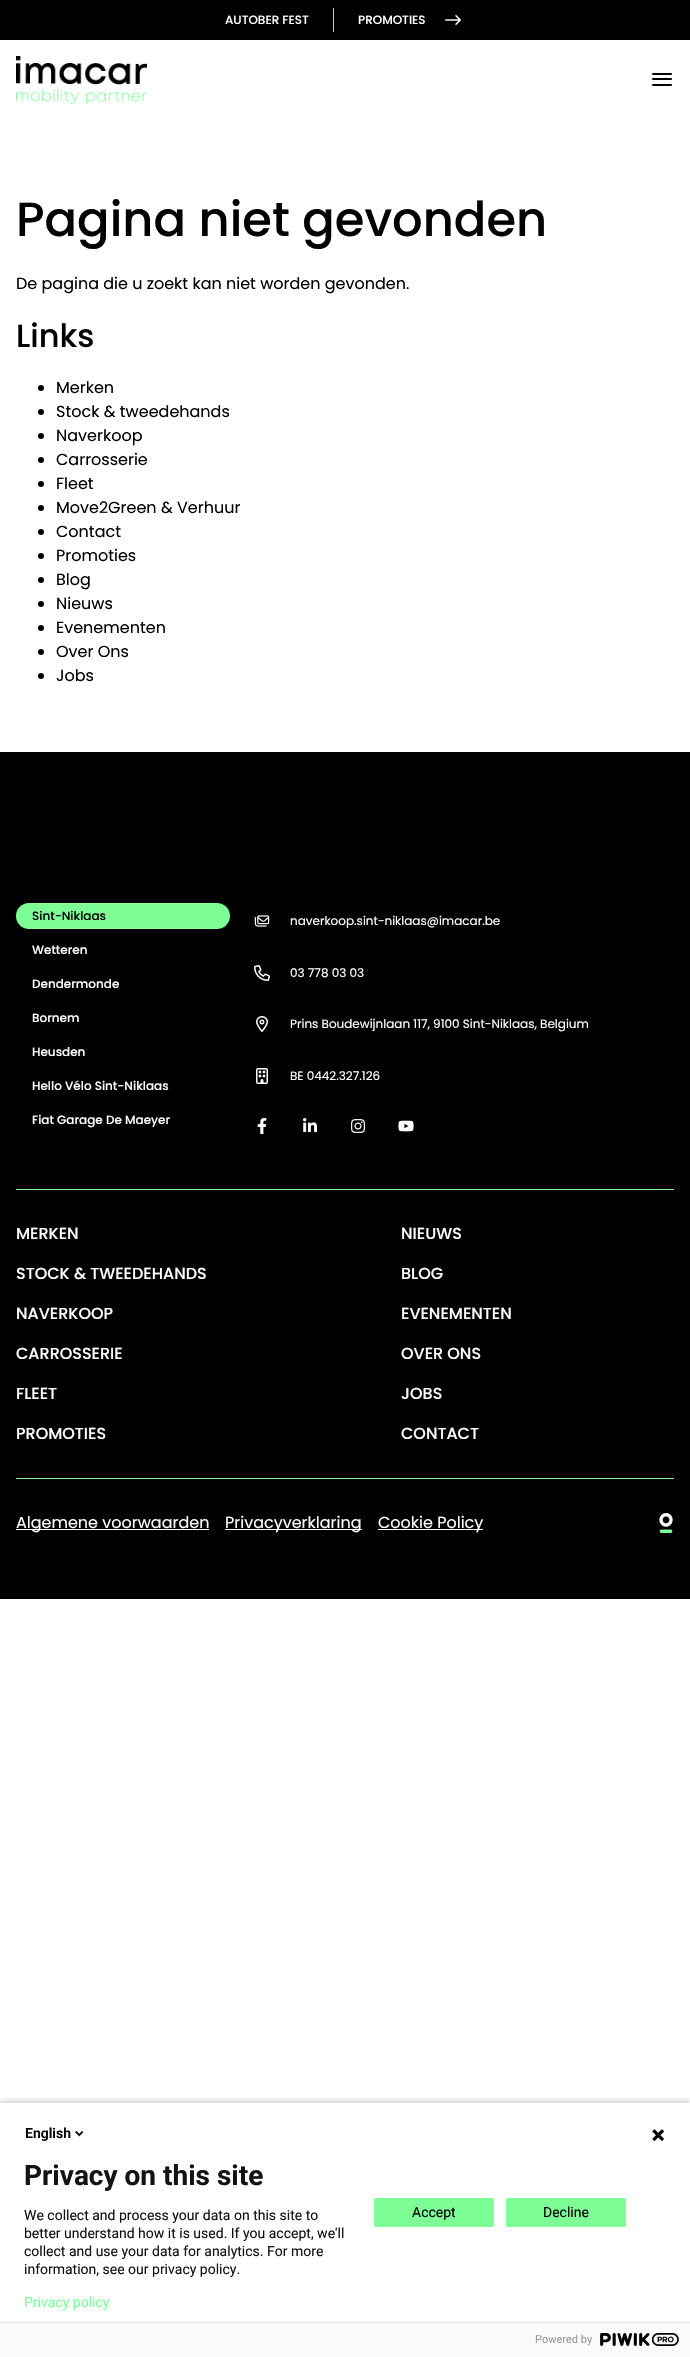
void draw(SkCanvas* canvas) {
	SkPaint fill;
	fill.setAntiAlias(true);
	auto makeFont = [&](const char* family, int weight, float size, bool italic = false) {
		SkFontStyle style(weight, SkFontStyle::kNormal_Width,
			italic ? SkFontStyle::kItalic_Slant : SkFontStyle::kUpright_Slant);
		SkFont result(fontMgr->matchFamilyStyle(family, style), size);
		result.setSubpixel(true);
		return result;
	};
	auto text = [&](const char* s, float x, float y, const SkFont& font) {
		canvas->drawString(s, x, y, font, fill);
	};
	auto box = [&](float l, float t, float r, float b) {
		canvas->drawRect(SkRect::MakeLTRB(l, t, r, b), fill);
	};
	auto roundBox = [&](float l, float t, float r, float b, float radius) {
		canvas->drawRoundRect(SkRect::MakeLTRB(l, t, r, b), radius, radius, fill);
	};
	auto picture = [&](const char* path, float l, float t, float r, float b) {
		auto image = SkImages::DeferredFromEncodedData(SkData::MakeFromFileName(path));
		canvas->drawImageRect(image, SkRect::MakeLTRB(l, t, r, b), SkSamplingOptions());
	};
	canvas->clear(0xFFFFFFFF);
	fill.setColor(0xFF000000);
	box(0, 0, 690, 40);
	fill.setColor(0xFF7DFF96);
	box(333, 8, 334, 32);
	picture("image0.png", 445, 15, 461, 25);
	picture("image1.png", 16, 56, 147, 104);
	fill.setColor(0xFF000000);
	roundBox(652, 73, 672, 75, 1);
	roundBox(652, 78, 672, 80, 1);
	roundBox(652, 84, 672, 86, 1);
	canvas->drawCircle(41, 388, 3, fill);
	canvas->drawCircle(41, 412, 3, fill);
	canvas->drawCircle(41, 436, 3, fill);
	canvas->drawCircle(41, 460, 3, fill);
	canvas->drawCircle(41, 484, 3, fill);
	canvas->drawCircle(41, 508, 3, fill);
	canvas->drawCircle(41, 532, 3, fill);
	canvas->drawCircle(41, 556, 3, fill);
	canvas->drawCircle(41, 580, 3, fill);
	canvas->drawCircle(41, 604, 3, fill);
	canvas->drawCircle(41, 628, 3, fill);
	canvas->drawCircle(41, 652, 3, fill);
	canvas->drawCircle(41, 676, 3, fill);
	box(0, 752, 690, 1599);
	fill.setColor(0xFF7DFF96);
	roundBox(16, 903, 230, 929, 13);
	picture("image2.png", 254, 915, 270, 927);
	picture("image3.png", 254, 965, 270, 981);
	picture("image4.png", 256, 1016, 268, 1032);
	picture("image5.png", 256, 1068, 268, 1084);
	picture("image6.png", 257, 1118, 267, 1134);
	picture("image7.png", 303, 1118, 317, 1132);
	picture("image8.png", 351, 1119, 365, 1133);
	picture("image9.png", 398, 1120, 414, 1132);
	box(16, 1189, 674, 1190);
	box(16, 1478, 674, 1479);
	fill.setColor(0xFFFFFFFF);
	box(16, 1529, 209, 1530);
	box(225, 1529, 362, 1530);
	box(378, 1529, 483, 1530);
	picture("image10.png", 659, 1513, 673, 1533);
	canvas->save();
	canvas->clipRect(SkRect::MakeLTRB(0, 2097, 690, 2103));
	fill.setColor(0x24000000);
	fill.setMaskFilter(SkMaskFilter::MakeBlur(kNormal_SkBlurStyle, 2.5f));
	canvas->drawRect(SkRect::MakeLTRB(-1, 2100, 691, 2356), fill);
	fill.setMaskFilter(nullptr);
	canvas->restore();
	picture("image11.png", 75, 2130, 84, 2137);
	picture("image12.png", 652, 2129, 665, 2142);
	fill.setColor(0xFF7DFF96);
	roundBox(374, 2198, 494, 2227, 2);
	roundBox(506, 2198, 626, 2227, 2);
	fill.setColor(0xFFFAFAFA);
	box(0, 2323, 690, 2357);
	fill.setColor(0xFFDDDDDD);
	box(0, 2322, 690, 2323);
	picture("image13.png", 600, 2333, 679, 2346);
	auto font1 = makeFont("Poppins", 500, 12);
	fill.setColor(0xFFFFFFFF);
	text("AUTOBER FEST", 225, 24, font1);
	text("PROMOTIES", 358, 24, font1);
	auto font2 = makeFont("Poppins", 500, 48);
	fill.setColor(0xFF000000);
	text("Pagina niet gevonden", 16, 236, font2);
	auto font3 = makeFont("Poppins", 400, 16);
	text("De pagina die u zoekt kan niet worden gevonden.", 16, 289, font3);
	auto font4 = makeFont("Poppins", 500, 32);
	text("Links", 16, 347, font4);
	text("Merken", 56, 393, font3);
	text("Stock & tweedehands", 56, 417, font3);
	text("Naverkoop", 56, 441, font3);
	text("Carrosserie", 56, 465, font3);
	text("Fleet", 56, 489, font3);
	text("Move2Green & Verhuur", 56, 513, font3);
	text("Contact", 56, 537, font3);
	text("Promoties", 56, 561, font3);
	text("Blog", 56, 585, font3);
	text("Nieuws", 56, 609, font3);
	text("Evenementen", 56, 633, font3);
	text("Over Ons", 56, 657, font3);
	text("Jobs", 56, 681, font3);
	text("Sint-Niklaas", 32, 920, font1);
	fill.setColor(0xFFFFFFFF);
	text("Wetteren", 32, 954, font1);
	text("Dendermonde", 32, 988, font1);
	text("Bornem", 32, 1022, font1);
	text("Heusden", 32, 1056, font1);
	text("Hello Vélo Sint-Niklaas", 32, 1090, font1);
	text("Fiat Garage De Maeyer", 32, 1124, font1);
	auto font5 = makeFont("Poppins", 400, 12);
	text("naverkoop.sint-niklaas@imacar.be", 290, 925, font5);
	text("03 778 03 03", 290, 977, font5);
	text("Prins Boudewijnlaan 117, 9100 Sint-Niklaas, Belgium", 290, 1028, font5);
	text("BE 0442.327.126", 290, 1080, font5);
	auto font6 = makeFont("Poppins", 500, 16);
	text("MERKEN", 16, 1239, font6);
	text("NIEUWS", 401, 1239, font6);
	text("STOCK & TWEEDEHANDS", 16, 1279, font6);
	text("BLOG", 401, 1279, font6);
	text("NAVERKOOP", 16, 1319, font6);
	text("EVENEMENTEN", 401, 1319, font6);
	text("CARROSSERIE", 16, 1359, font6);
	text("OVER ONS", 401, 1359, font6);
	text("FLEET", 16, 1399, font6);
	text("JOBS", 401, 1399, font6);
	text("PROMOTIES", 16, 1439, font6);
	text("CONTACT", 401, 1439, font6);
	text("Algemene voorwaarden", 16, 1528, font3);
	text("Privacyverklaring", 225, 1528, font3);
	text("Cookie Policy", 378, 1528, font3);
	auto font7 = makeFont("Roboto", 600, 14);
	fill.setColor(0xFF000000);
	text("English", 25, 2138, font7);
	auto font8 = makeFont("Roboto", 700, 28);
	fill.setColor(0xFF131313);
	text("Privacy on this site", 24, 2185, font8);
	auto font9 = makeFont("Roboto", 400, 14);
	text("We collect and process your data on this site to", 24, 2220, font9);
	text("better understand how it is used. If you accept, we'll", 24, 2238, font9);
	text("collect and use your data for analytics. For more", 24, 2256, font9);
	text("information, see our privacy policy.", 24, 2274, font9);
	fill.setColor(0xFF7DFF96);
	text("Privacy policy", 24, 2307, font9);
	fill.setColor(0xFF000000);
	text("Accept", 412, 2217, font9);
	text("Decline", 543, 2217, font9);
	auto font10 = makeFont("Roboto", 400, 11);
	fill.setColor(0xFF999999);
	text("Powered by", 535, 2343, font10);
}
